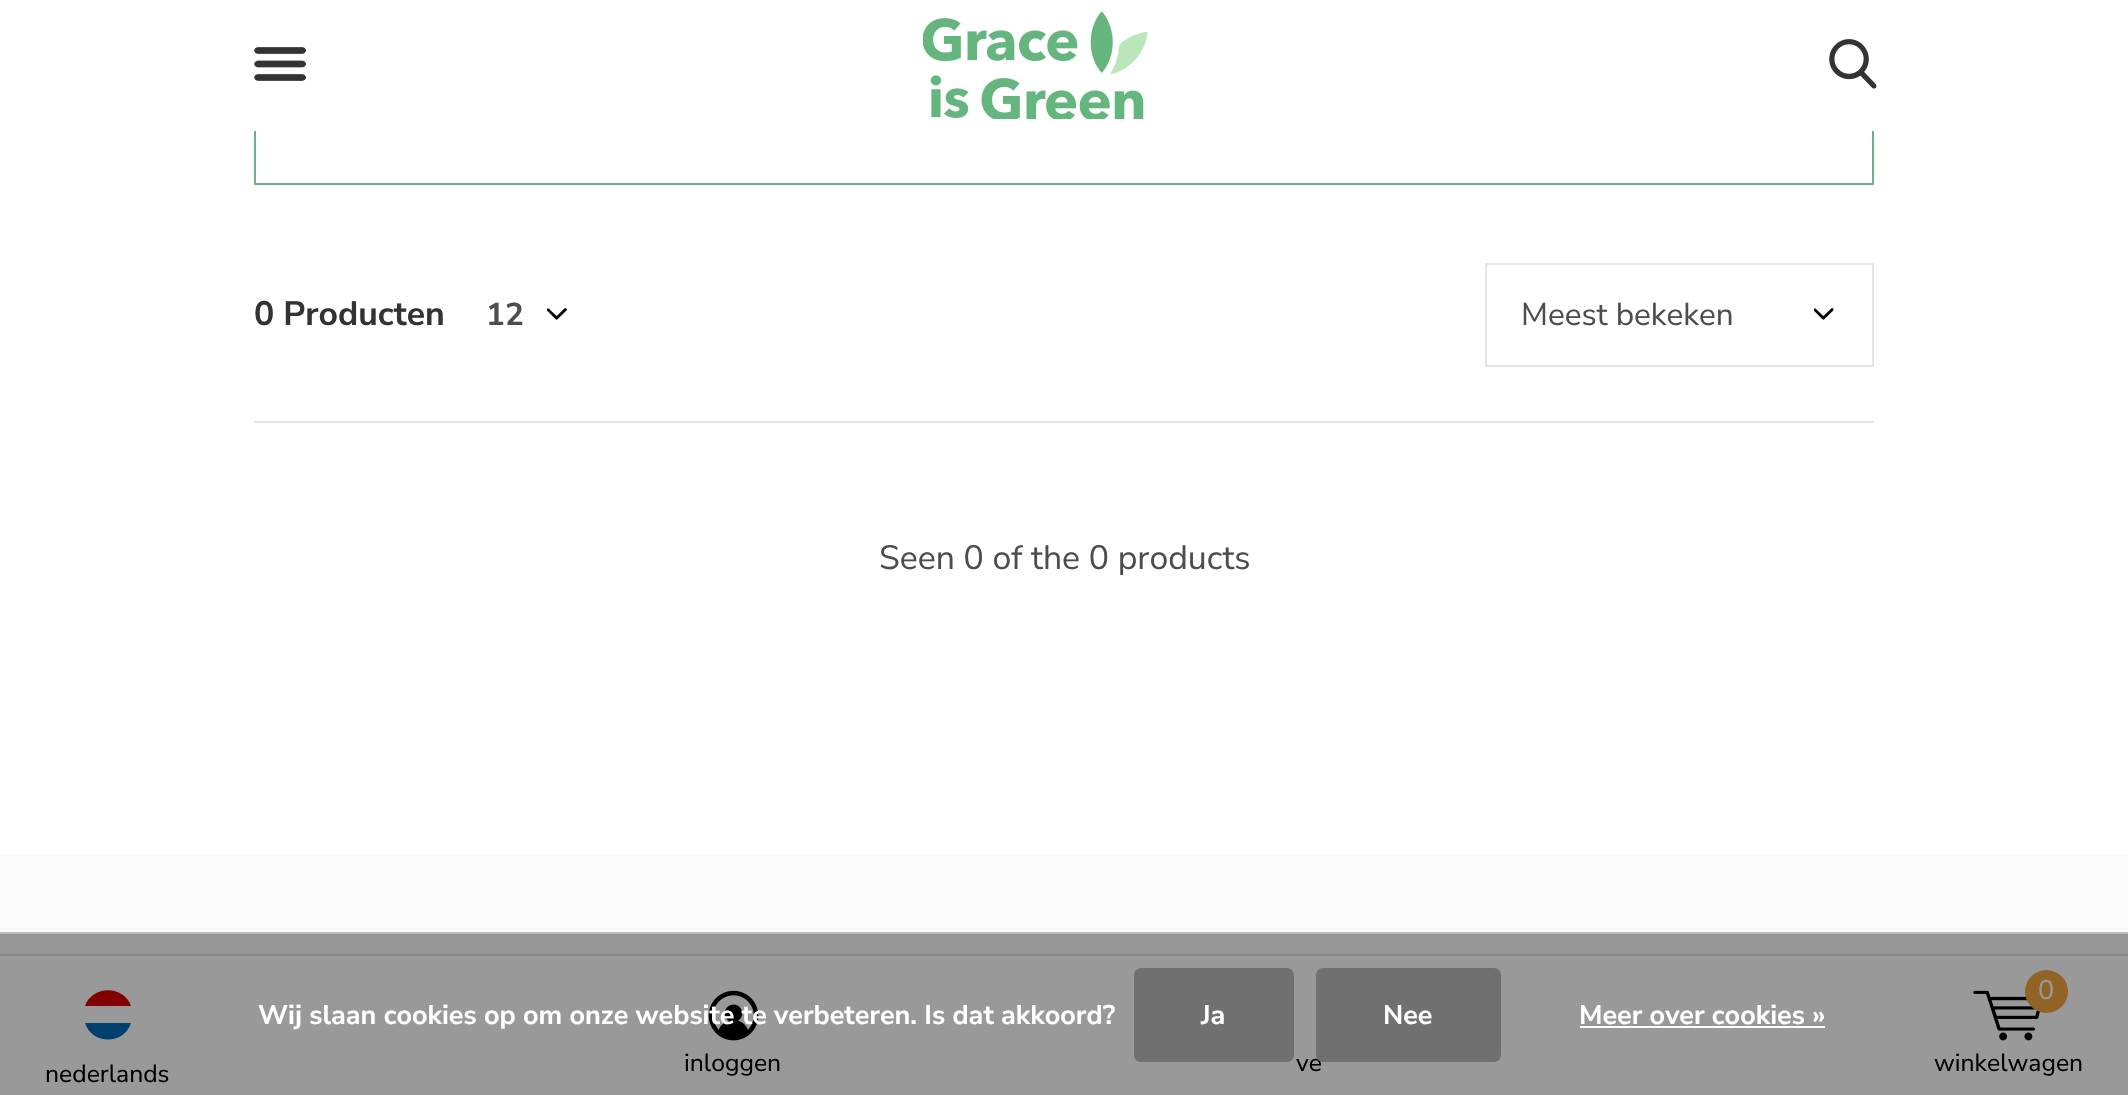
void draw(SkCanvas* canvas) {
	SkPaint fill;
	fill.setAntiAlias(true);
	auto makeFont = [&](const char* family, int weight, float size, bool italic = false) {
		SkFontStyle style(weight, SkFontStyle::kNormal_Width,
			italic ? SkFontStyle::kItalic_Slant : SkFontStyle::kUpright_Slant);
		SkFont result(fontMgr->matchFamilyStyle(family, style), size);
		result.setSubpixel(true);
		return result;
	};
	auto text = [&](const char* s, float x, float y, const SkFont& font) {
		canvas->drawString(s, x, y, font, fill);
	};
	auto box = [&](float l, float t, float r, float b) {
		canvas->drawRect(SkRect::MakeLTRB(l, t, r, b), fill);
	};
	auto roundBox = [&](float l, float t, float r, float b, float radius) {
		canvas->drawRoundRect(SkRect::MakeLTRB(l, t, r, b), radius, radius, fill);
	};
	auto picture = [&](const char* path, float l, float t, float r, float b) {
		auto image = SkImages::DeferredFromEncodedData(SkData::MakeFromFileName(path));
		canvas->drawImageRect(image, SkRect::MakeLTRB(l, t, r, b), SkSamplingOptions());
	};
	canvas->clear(0xFFFFFFFF);
	fill.setStyle(SkPaint::kStroke_Style);
	fill.setStrokeWidth(2);
	fill.setColor(0xFF70AF85);
	canvas->drawRect(SkRect::MakeLTRB(255, 78, 1873, 184), fill);
	fill.setStyle(SkPaint::kFill_Style);
	fill.setColor(0xFFFFFFFF);
	box(254, 77, 1874, 131);
	picture("image0.png", 254, 47, 306, 81);
	picture("image1.png", 923, 11, 1148, 119);
	picture("image2.png", 1829, 39, 1877, 89);
	picture("image3.png", 547, 308, 567, 320);
	picture("image4.png", 1814, 308, 1834, 320);
	fill.setStyle(SkPaint::kStroke_Style);
	fill.setColor(0xFFE5E5E5);
	canvas->drawRect(SkRect::MakeLTRB(1486, 264, 1873, 366), fill);
	fill.setStyle(SkPaint::kFill_Style);
	box(254, 421, 1874, 423);
	fill.setColor(0xFFFAFAFA);
	box(0, 855, 2128, 932);
	fill.setColor(0xFF969696);
	box(0, 934, 2128, 954);
	fill.setColor(0xFF999999);
	box(0, 956, 2128, 1095);
	fill.setColor(0xFF898989);
	box(0, 954, 2128, 956);
	fill.setColor(0xFF830000);
	canvas->drawPath(SkPathBuilder().moveTo(85, 1006).cubicTo(92, 985, 124, 985, 131, 1006).close().detach(), fill);
	fill.setColor(0xFF00406F);
	canvas->drawPath(SkPathBuilder().moveTo(131, 1023).lineTo(85, 1023).cubicTo(92, 1045, 124, 1045, 131, 1023).close().detach(), fill);
	picture("image5.png", 708, 990, 759, 1041);
	picture("image6.png", 1973, 990, 2040, 1041);
	fill.setColor(0xFF926327);
	canvas->drawCircle(2046.5f, 991.5f, 21.5f, fill);
	fill.setColor(0xFFBBBBBB);
	box(0, 932, 2128, 934);
	fill.setColor(0xFF707070);
	roundBox(1134, 968, 1294, 1062, 7);
	fill.setColor(0xFFFFFFFF);
	box(1580, 1026, 1825, 1028);
	auto font1 = makeFont("Nunito Sans", 700, 33.75f);
	fill.setColor(0xFF333333);
	text("0 Producten", 254, 325, font1);
	auto font2 = makeFont("Nunito Sans", 700, 31.5f);
	fill.setColor(0xFF4D4D4D);
	text("12", 486, 325, font2);
	auto font3 = makeFont("Nunito Sans", 400, 31.5f);
	text("Meest bekeken", 1521, 325, font3);
	auto font4 = makeFont("Nunito Sans", 400, 33.75f);
	text("Seen 0 of the 0 products", 879, 569, font4);
	auto font5 = makeFont("Nunito Sans", 400, 24.75f);
	fill.setColor(0xFF000000);
	text("nederlands", 45, 1082, font5);
	text("inloggen", 684, 1071, font5);
	text("ve", 1296, 1071, font5);
	auto font6 = makeFont("Nunito Sans", 400, 27);
	fill.setColor(0xFF999999);
	text("0", 2038, 999, font6);
	fill.setColor(0xFF000000);
	text("winkelwagen", 1934, 1071, font5);
	auto font7 = makeFont("Nunito Sans", 700, 27);
	fill.setColor(0xFFFFFFFF);
	text("Wij slaan cookies op om onze website te verbeteren. Is dat akkoord?", 258, 1024, font7);
	text("Ja", 1201, 1024, font7);
	fill.setColor(0xFF707070);
	roundBox(1316, 968, 1501, 1062, 7);
	fill.setColor(0xFFFFFFFF);
	text("Nee", 1383, 1024, font7);
	text("Meer over cookies »", 1579, 1024, font7);
}
